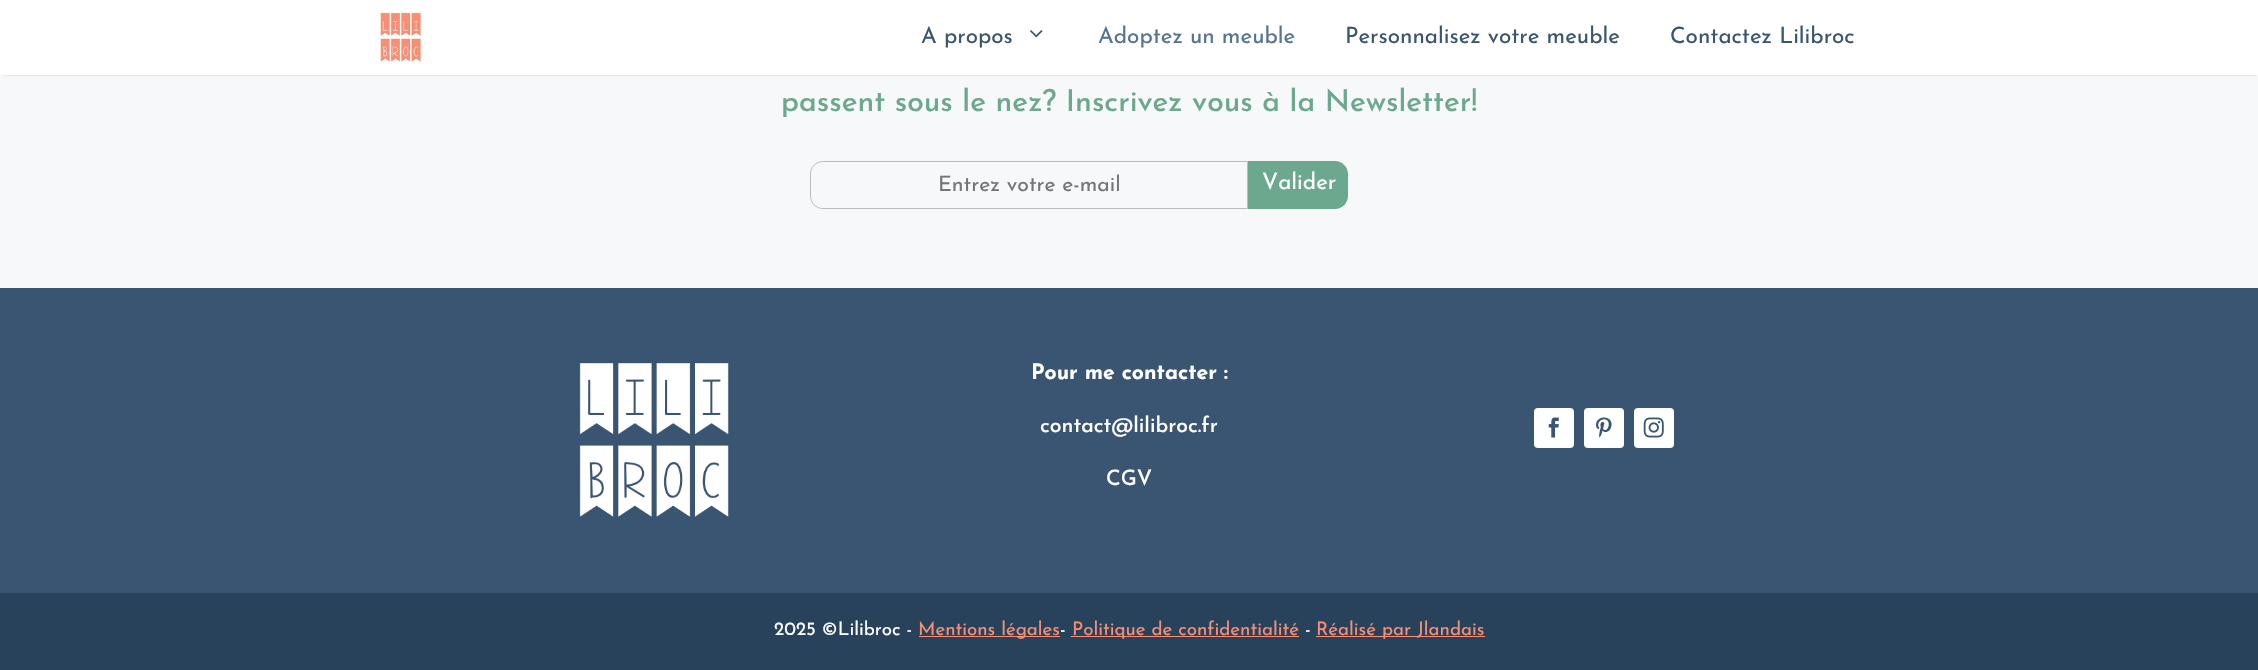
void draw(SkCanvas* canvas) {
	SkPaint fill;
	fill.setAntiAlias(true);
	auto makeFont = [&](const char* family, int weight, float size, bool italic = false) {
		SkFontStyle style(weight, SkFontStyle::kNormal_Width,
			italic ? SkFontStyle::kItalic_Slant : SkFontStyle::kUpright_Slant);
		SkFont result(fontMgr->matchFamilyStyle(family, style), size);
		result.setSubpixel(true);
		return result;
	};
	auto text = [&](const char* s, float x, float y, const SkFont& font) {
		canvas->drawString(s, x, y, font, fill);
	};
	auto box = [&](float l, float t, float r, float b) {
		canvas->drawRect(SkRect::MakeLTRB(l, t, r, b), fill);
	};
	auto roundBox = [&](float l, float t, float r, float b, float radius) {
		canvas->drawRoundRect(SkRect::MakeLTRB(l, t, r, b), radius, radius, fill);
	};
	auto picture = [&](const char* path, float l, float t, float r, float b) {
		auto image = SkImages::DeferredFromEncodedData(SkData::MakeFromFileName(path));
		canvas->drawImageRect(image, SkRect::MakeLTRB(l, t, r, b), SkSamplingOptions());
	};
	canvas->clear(0xFF28425C);
	fill.setColor(0xFFF7F8F9);
	box(0, 75, 2258, 288);
	fill.setColor(0x33000000);
	fill.setMaskFilter(SkMaskFilter::MakeBlur(kNormal_SkBlurStyle, 1));
	canvas->drawRect(SkRect::MakeLTRB(3, 5, 2256, 75), fill);
	fill.setMaskFilter(nullptr);
	fill.setColor(0xFFFFFFFF);
	box(0, 0, 2258, 75);
	picture("image0.png", 380, 12, 421, 62);
	picture("image1.png", 1030, 30, 1043, 38);
	fill.setStyle(SkPaint::kStroke_Style);
	fill.setStrokeWidth(1);
	fill.setColor(0xFFBBBBBB);
	canvas->drawPath(SkPathBuilder().moveTo(823, 161.5f).lineTo(1247.5f, 161.5f).lineTo(1247.5f, 208.5f).lineTo(823, 208.5f).cubicTo(816, 208.5f, 810.5f, 203, 810.5f, 196).lineTo(810.5f, 174).cubicTo(810.5f, 167, 816, 161.5f, 823, 161.5f).close().detach(), fill);
	fill.setStyle(SkPaint::kFill_Style);
	fill.setColor(0xFF6CA88E);
	canvas->drawPath(SkPathBuilder().moveTo(1248, 161).lineTo(1335, 161).cubicTo(1342, 161, 1348, 167, 1348, 174).lineTo(1348, 196).cubicTo(1348, 203, 1342, 209, 1335, 209).lineTo(1248, 209).close().detach(), fill);
	fill.setColor(0xFF395572);
	box(0, 288, 2258, 593);
	picture("image2.png", 579, 363, 729, 517);
	fill.setColor(0xFFFFFFFF);
	roundBox(1534, 408, 1574, 448, 4);
	picture("image3.png", 1548, 417, 1559, 438);
	roundBox(1584, 408, 1624, 448, 4);
	picture("image4.png", 1596, 417, 1612, 438);
	roundBox(1634, 408, 1674, 448, 4);
	picture("image5.png", 1643, 417, 1664, 438);
	fill.setColor(0xFFF88F75);
	box(919, 636, 1060, 637);
	box(1071, 636, 1299, 637);
	box(1316, 636, 1485, 637);
	auto font1 = makeFont("Josefin Sans", 400, 22.5f);
	fill.setColor(0xFF395572);
	text("A propos", 921, 43, font1);
	fill.setColor(0xFF557392);
	text("Adoptez un meuble", 1098, 43, font1);
	fill.setColor(0xFF395572);
	text("Personnalisez votre meuble", 1345, 43, font1);
	text("Contactez Lilibroc", 1670, 43, font1);
	auto font2 = makeFont("Josefin Sans", 500, 30);
	fill.setColor(0xFF6CA88E);
	text("passent sous le nez? Inscrivez vous à la Newsletter!", 781, 111, font2);
	auto font3 = makeFont("Josefin Sans", 400, 21.25f);
	fill.setColor(0xFF757575);
	text("Entrez votre e-mail", 938, 191, font3);
	fill.setColor(0xFFFFFFFF);
	text("Valider", 1262, 189, font1);
	auto font4 = makeFont("Josefin Sans", 700, 21.25f);
	text("Pour me contacter :", 1031, 379, font4);
	auto font5 = makeFont("Josefin Sans", 500, 21.25f);
	text("contact@lilibroc.fr", 1040, 432, font5);
	text("CGV", 1106, 485, font5);
	auto font6 = makeFont("Josefin Sans", 400, 18.75f);
	text("2025 ©Lilibroc -", 774, 635, font6);
	fill.setColor(0xFFF88F75);
	text("Mentions légales", 918, 635, font6);
	fill.setColor(0xFFFFFFFF);
	text("-", 1060, 635, font6);
	fill.setColor(0xFFF88F75);
	text("Politique de confidentialité", 1072, 635, font6);
	fill.setColor(0xFFFFFFFF);
	text("-", 1305, 635, font6);
	fill.setColor(0xFFF88F75);
	text("Réalisé par Jlandais", 1316, 635, font6);
}
